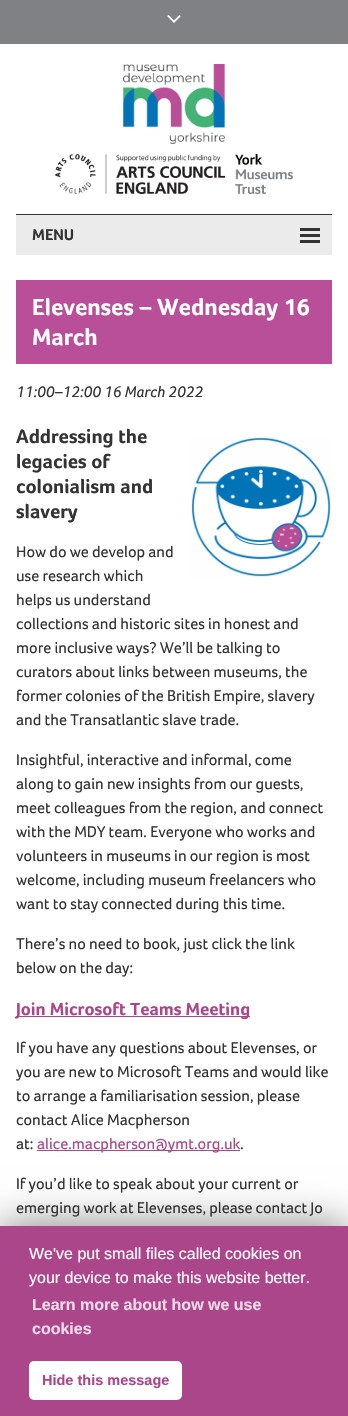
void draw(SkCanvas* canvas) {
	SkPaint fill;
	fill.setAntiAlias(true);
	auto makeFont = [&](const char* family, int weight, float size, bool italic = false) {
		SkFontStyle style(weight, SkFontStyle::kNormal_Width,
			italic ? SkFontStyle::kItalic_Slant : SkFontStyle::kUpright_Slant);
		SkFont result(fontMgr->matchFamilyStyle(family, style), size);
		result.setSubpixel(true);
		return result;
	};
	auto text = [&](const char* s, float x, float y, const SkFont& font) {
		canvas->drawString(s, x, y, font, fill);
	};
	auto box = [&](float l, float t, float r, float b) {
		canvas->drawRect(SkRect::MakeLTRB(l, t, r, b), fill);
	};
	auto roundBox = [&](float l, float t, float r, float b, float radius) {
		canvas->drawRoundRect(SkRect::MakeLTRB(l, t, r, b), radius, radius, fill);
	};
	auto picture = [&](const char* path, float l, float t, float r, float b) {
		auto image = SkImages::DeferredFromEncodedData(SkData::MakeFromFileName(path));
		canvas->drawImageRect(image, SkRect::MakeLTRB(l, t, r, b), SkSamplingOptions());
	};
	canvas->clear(0xFFFFFFFF);
	fill.setColor(0xFF808184);
	box(0, 0, 348, 44);
	picture("image0.png", 167, 15, 181, 23);
	picture("image1.png", 123, 64, 225, 144);
	picture("image2.png", 55, 154, 225, 194);
	picture("image3.png", 235, 154, 293, 194);
	fill.setColor(0xFFEBEBEB);
	box(16, 215, 332, 255);
	fill.setColor(0xFF333333);
	box(16, 214, 332, 215);
	box(300, 228, 320, 231);
	box(300, 234, 320, 237);
	box(300, 240, 320, 243);
	fill.setColor(0xFFB94F99);
	box(16, 280, 332, 364);
	picture("image4.png", 191, 437, 331, 577);
	fill.setColor(0xFFAB468A);
	box(16, 1016, 250, 1017);
	box(37, 1150, 240, 1151);
	fill.setColor(0x80000000);
	fill.setMaskFilter(SkMaskFilter::MakeBlur(kNormal_SkBlurStyle, 20));
	canvas->drawRect(SkRect::MakeLTRB(0, 1226, 348, 1416), fill);
	fill.setMaskFilter(nullptr);
	fill.setColor(0xFFAB468A);
	box(0, 1226, 348, 1416);
	fill.setColor(0xFFFFFFFF);
	roundBox(29, 1361, 182, 1400, 5);
	auto font1 = makeFont("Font", 700, 16);
	fill.setColor(0xFF333333);
	text("MENU", 32, 240, font1);
	auto font2 = makeFont("Font", 700, 24);
	fill.setColor(0xFFFFFFFF);
	text("Elevenses – Wednesday 16", 32, 315, font2);
	text("March", 32, 345, font2);
	auto font3 = makeFont("Font", 400, 16, true);
	fill.setColor(0xFF333333);
	text("11:00–12:00 16 March 2022", 16, 397, font3);
	auto font4 = makeFont("Font", 700, 20);
	text("Addressing the", 16, 443, font4);
	text("legacies of", 16, 468, font4);
	text("colonialism and", 16, 493, font4);
	text("slavery", 16, 518, font4);
	auto font5 = makeFont("Font", 400, 16);
	text("How do we develop and", 16, 557, font5);
	text("use research which", 16, 581, font5);
	text("helps us understand", 16, 605, font5);
	text("collections and historic sites in honest and", 16, 629, font5);
	text("more inclusive ways? We’ll be talking to", 16, 653, font5);
	text("curators about links between museums, the", 16, 677, font5);
	text("former colonies of the British Empire, slavery", 16, 701, font5);
	text("and the Transatlantic slave trade.", 16, 725, font5);
	text("Insightful, interactive and informal, come", 16, 765, font5);
	text("along to gain new insights from our guests,", 16, 789, font5);
	text("meet colleagues from the region, and connect", 16, 813, font5);
	text("with the MDY team. Everyone who works and", 16, 837, font5);
	text("volunteers in museums in our region is most", 16, 861, font5);
	text("welcome, including museum freelancers who", 16, 885, font5);
	text("want to stay connected during this time.", 16, 909, font5);
	text("There’s no need to book, just click the link", 16, 949, font5);
	text("below on the day:", 16, 973, font5);
	auto font6 = makeFont("Font", 700, 18);
	fill.setColor(0xFFAB468A);
	text("Join Microsoft Teams Meeting", 16, 1015, font6);
	fill.setColor(0xFF333333);
	text("If you have any questions about Elevenses, or", 16, 1053, font5);
	text("you are new to Microsoft Teams and would like", 16, 1077, font5);
	text("to arrange a familiarisation session, please", 16, 1101, font5);
	text("contact Alice Macpherson", 16, 1125, font5);
	text("at:", 16, 1149, font5);
	fill.setColor(0xFFAB468A);
	text("alice.macpherson@ymt.org.uk", 37, 1149, font5);
	fill.setColor(0xFF333333);
	text(".", 240, 1149, font5);
	text("If you’d like to speak about your current or", 16, 1189, font5);
	text("emerging work at Elevenses, please contact Jo", 16, 1213, font5);
	auto font7 = makeFont("Liberation Sans", 400, 16);
	fill.setColor(0xFFFFFFFF);
	text("We've put small files called cookies on", 29, 1259, font7);
	text("your device to make this website better.", 29, 1283, font7);
	auto font8 = makeFont("Liberation Sans", 700, 16);
	fill.setColor(0xFFEEDAE8);
	text("Learn more about how we use", 32, 1310, font8);
	text("cookies", 32, 1334, font8);
	auto font9 = makeFont("Liberation Sans", 700, 14.5f);
	fill.setColor(0xFFAB468A);
	text("Hide this message", 42, 1385, font9);
}
